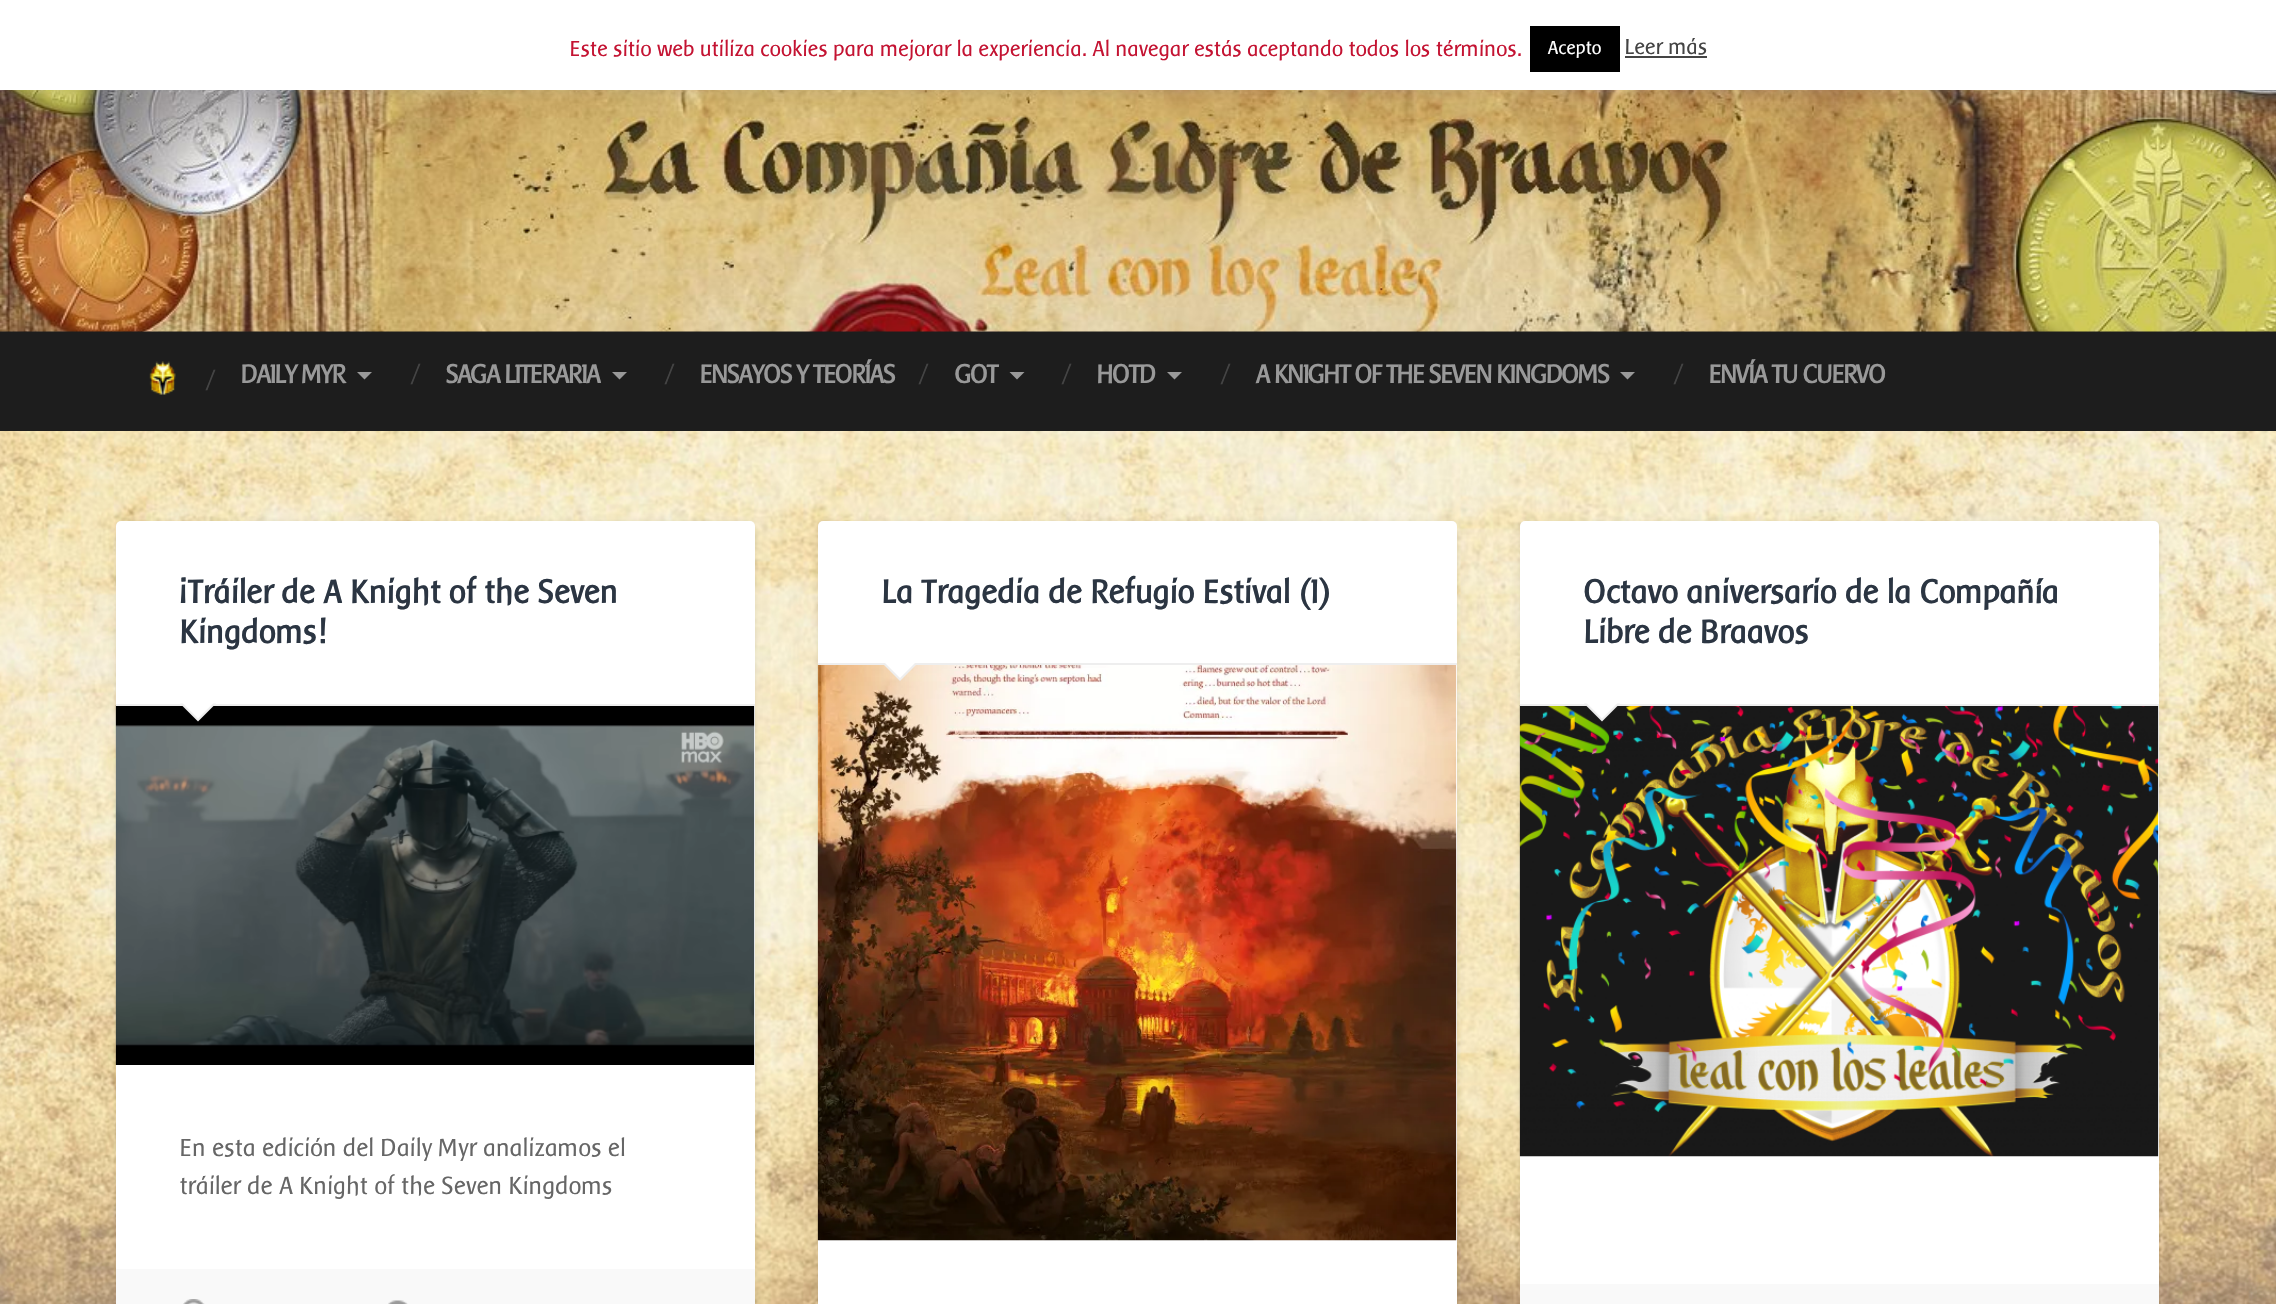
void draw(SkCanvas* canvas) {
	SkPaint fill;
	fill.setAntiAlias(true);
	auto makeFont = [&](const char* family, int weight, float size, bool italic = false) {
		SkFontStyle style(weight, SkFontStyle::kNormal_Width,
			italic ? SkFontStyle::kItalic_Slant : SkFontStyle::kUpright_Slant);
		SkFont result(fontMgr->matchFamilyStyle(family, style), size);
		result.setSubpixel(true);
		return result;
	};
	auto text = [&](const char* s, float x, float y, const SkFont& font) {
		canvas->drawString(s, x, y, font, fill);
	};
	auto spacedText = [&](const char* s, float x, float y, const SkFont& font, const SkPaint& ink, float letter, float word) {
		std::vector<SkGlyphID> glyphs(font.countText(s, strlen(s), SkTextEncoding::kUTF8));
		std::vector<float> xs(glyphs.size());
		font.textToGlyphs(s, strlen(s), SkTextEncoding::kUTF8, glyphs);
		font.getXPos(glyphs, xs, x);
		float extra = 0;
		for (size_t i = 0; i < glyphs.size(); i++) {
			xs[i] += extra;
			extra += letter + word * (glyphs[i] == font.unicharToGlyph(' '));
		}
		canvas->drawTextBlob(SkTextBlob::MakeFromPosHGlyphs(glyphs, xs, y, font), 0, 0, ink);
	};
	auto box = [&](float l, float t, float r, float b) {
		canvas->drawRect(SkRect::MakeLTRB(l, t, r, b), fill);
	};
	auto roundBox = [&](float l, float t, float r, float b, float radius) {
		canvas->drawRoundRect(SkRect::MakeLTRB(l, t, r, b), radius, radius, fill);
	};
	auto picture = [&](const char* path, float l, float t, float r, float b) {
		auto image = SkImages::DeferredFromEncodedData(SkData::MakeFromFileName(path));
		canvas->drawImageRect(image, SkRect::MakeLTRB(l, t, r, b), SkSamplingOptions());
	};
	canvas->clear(0xFFFFFFFF);
	picture("image0.png", 0, 431, 2276, 1304);
	fill.setColor(0xFF1D1D1D);
	box(0, 331, 2276, 431);
	picture("image1.png", 0, 90, 2276, 332);
	fill.setColor(0x4DACABAB);
	fill.setMaskFilter(SkMaskFilter::MakeBlur(kNormal_SkBlurStyle, 7.5f));
	canvas->drawRect(SkRect::MakeLTRB(0, -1, 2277, 89), fill);
	fill.setMaskFilter(nullptr);
	fill.setColor(0xFFFFFFFF);
	box(0, 0, 2276, 90);
	fill.setColor(0xFF000000);
	box(1530, 26, 1620, 72);
	fill.setColor(0xFF444444);
	box(1625, 56, 1707, 58);
	picture("image2.png", 149, 361, 176, 395);
	fill.setColor(0xFF999999);
	canvas->drawPath(SkPathBuilder().moveTo(357, 372).lineTo(372, 372).lineTo(364.5f, 379.5f).close().detach(), fill);
	canvas->drawPath(SkPathBuilder().moveTo(612, 372).lineTo(627, 372).lineTo(619.5f, 379.5f).close().detach(), fill);
	canvas->drawPath(SkPathBuilder().moveTo(1009.5f, 372).lineTo(1024.5f, 372).lineTo(1017, 379.5f).close().detach(), fill);
	canvas->drawPath(SkPathBuilder().moveTo(1167, 372).lineTo(1182, 372).lineTo(1174.5f, 379.5f).close().detach(), fill);
	canvas->drawPath(SkPathBuilder().moveTo(1620, 372).lineTo(1635, 372).lineTo(1627.5f, 379.5f).close().detach(), fill);
	fill.setColor(0x1A000000);
	fill.setMaskFilter(SkMaskFilter::MakeBlur(kNormal_SkBlurStyle, 3));
	canvas->drawRoundRect(SkRect::MakeLTRB(116, 522, 755, 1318), 5, 5, fill);
	fill.setMaskFilter(nullptr);
	fill.setColor(0xFFFFFFFF);
	roundBox(116, 521, 755, 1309, 5);
	picture("image3.png", 115, 705, 755, 1065);
	fill.setColor(0xFFEEEEEE);
	box(116, 704, 755, 706);
	canvas->drawPath(SkPathBuilder().moveTo(180, 703.5f).lineTo(216, 703.5f).lineTo(198, 721.5f).close().detach(), fill);
	fill.setColor(0xFFFFFFFF);
	canvas->drawPath(SkPathBuilder().moveTo(181.5f, 702).lineTo(214.5f, 702).lineTo(198, 718.5f).close().detach(), fill);
	fill.setColor(0xFFF9F9F9);
	box(116, 1269, 755, 1304);
	picture("image4.png", 183, 1299, 205, 1304);
	picture("image5.png", 388, 1300, 408, 1304);
	fill.setColor(0x1A000000);
	fill.setMaskFilter(SkMaskFilter::MakeBlur(kNormal_SkBlurStyle, 3));
	canvas->drawRoundRect(SkRect::MakeLTRB(818, 522, 1457, 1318), 5, 5, fill);
	fill.setMaskFilter(nullptr);
	fill.setColor(0xFFFFFFFF);
	roundBox(818, 521, 1457, 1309, 5);
	picture("image6.png", 817, 664, 1457, 1241);
	fill.setColor(0xFFEEEEEE);
	box(818, 663, 1457, 665);
	canvas->drawPath(SkPathBuilder().moveTo(882, 663).lineTo(918, 663).lineTo(900, 681).close().detach(), fill);
	fill.setColor(0xFFFFFFFF);
	canvas->drawPath(SkPathBuilder().moveTo(883.5f, 661.5f).lineTo(916.5f, 661.5f).lineTo(900, 678).close().detach(), fill);
	fill.setColor(0x1A000000);
	fill.setMaskFilter(SkMaskFilter::MakeBlur(kNormal_SkBlurStyle, 3));
	canvas->drawRoundRect(SkRect::MakeLTRB(1520, 522, 2159, 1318), 5, 5, fill);
	fill.setMaskFilter(nullptr);
	fill.setColor(0xFFFFFFFF);
	roundBox(1520, 521, 2159, 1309, 5);
	picture("image7.png", 1519, 705, 2159, 1157);
	fill.setColor(0xFFEEEEEE);
	box(1520, 704, 2159, 706);
	canvas->drawPath(SkPathBuilder().moveTo(1584, 703.5f).lineTo(1620, 703.5f).lineTo(1602, 721.5f).close().detach(), fill);
	fill.setColor(0xFFFFFFFF);
	canvas->drawPath(SkPathBuilder().moveTo(1585.5f, 702).lineTo(1618.5f, 702).lineTo(1602, 718.5f).close().detach(), fill);
	fill.setColor(0xFFF9F9F9);
	box(1520, 1284, 2159, 1304);
	auto font1 = makeFont("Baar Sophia", 400, 22.5f);
	fill.setColor(0xFFC41332);
	text("Este sitio web utiliza cookies para mejorar la experiencia. Al navegar estás aceptando todos los términos.", 570, 56, font1);
	auto font2 = makeFont("Baar Sophia", 400, 19.5f);
	fill.setColor(0xFFFFFFFF);
	text("Acepto", 1548, 54, font2);
	fill.setColor(0xFF444444);
	text("Leer más", 1625, 54, font1);
	auto font3 = makeFont("Baar Sophia", 400, 24);
	text("/", 206, 387, font3);
	auto font4 = makeFont("Baar Sophia", 700, 26.75f);
	fill.setColor(0xFF999999);
	spacedText("DAILY MYR", 241, 383, font4, fill, -1.5f, 0);
	fill.setColor(0xFF444444);
	text("/", 411, 381, font3);
	fill.setColor(0xFF999999);
	spacedText("SAGA LITERARIA", 446, 383, font4, fill, -1.5f, 0);
	fill.setColor(0xFF444444);
	text("/", 665, 381, font3);
	fill.setColor(0xFF999999);
	spacedText("ENSAYOS Y TEORÍAS", 700, 383, font4, fill, -1.5f, 0);
	fill.setColor(0xFF444444);
	text("/", 919, 381, font3);
	fill.setColor(0xFF999999);
	spacedText("GOT", 955, 383, font4, fill, -1.5f, 0);
	fill.setColor(0xFF444444);
	text("/", 1062, 381, font3);
	fill.setColor(0xFF999999);
	spacedText("HOTD", 1097, 383, font4, fill, -1.5f, 0);
	fill.setColor(0xFF444444);
	text("/", 1221, 381, font3);
	fill.setColor(0xFF999999);
	spacedText("A KNIGHT OF THE SEVEN KINGDOMS", 1256, 383, font4, fill, -1.5f, 0);
	fill.setColor(0xFF444444);
	text("/", 1674, 381, font3);
	fill.setColor(0xFF999999);
	spacedText("ENVÍA TU CUERVO", 1709, 383, font4, fill, -1.5f, 0);
	auto font5 = makeFont("Baar Sophia", 700, 33.75f);
	fill.setColor(0xFF2B3542);
	text("¡Tráiler de A Knight of the Seven", 180, 603, font5);
	text("Kingdoms!", 180, 643, font5);
	auto font6 = makeFont("Baar Sophia", 400, 25.6f);
	fill.setColor(0xFF666666);
	text("En esta edición del Daily Myr analizamos el", 180, 1156, font6);
	text("tráiler de A Knight of the Seven Kingdoms", 180, 1194, font6);
	fill.setColor(0xFF2B3542);
	text("La Tragedia de Refugio Estival (I)", 882, 603, font5);
	text("Octavo aniversario de la Compañía", 1584, 603, font5);
	text("Libre de Braavos", 1584, 643, font5);
}
